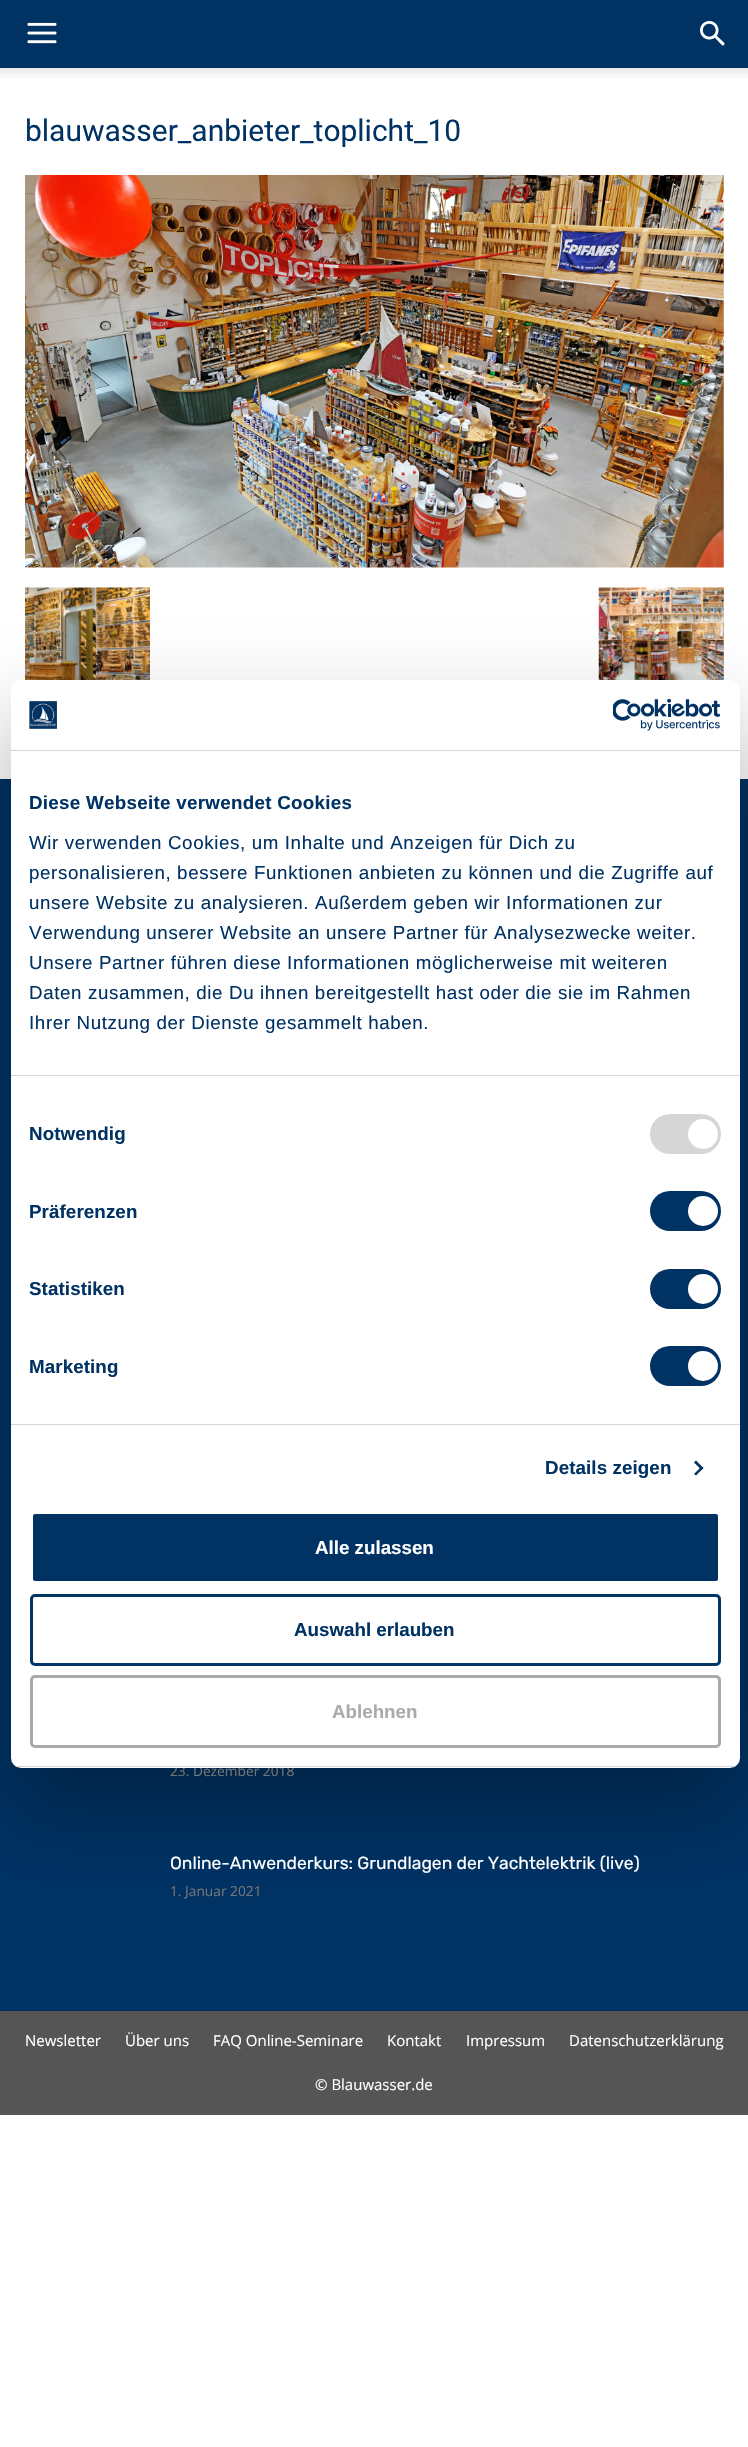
void draw(SkCanvas* canvas) {
	SkPaint fill;
	fill.setAntiAlias(true);
	auto makeFont = [&](const char* family, int weight, float size, bool italic = false) {
		SkFontStyle style(weight, SkFontStyle::kNormal_Width,
			italic ? SkFontStyle::kItalic_Slant : SkFontStyle::kUpright_Slant);
		SkFont result(fontMgr->matchFamilyStyle(family, style), size);
		result.setSubpixel(true);
		return result;
	};
	auto text = [&](const char* s, float x, float y, const SkFont& font) {
		canvas->drawString(s, x, y, font, fill);
	};
	auto spacedText = [&](const char* s, float x, float y, const SkFont& font, const SkPaint& ink, float letter, float word) {
		std::vector<SkGlyphID> glyphs(font.countText(s, strlen(s), SkTextEncoding::kUTF8));
		std::vector<float> xs(glyphs.size());
		font.textToGlyphs(s, strlen(s), SkTextEncoding::kUTF8, glyphs);
		font.getXPos(glyphs, xs, x);
		float extra = 0;
		for (size_t i = 0; i < glyphs.size(); i++) {
			xs[i] += extra;
			extra += letter + word * (glyphs[i] == font.unicharToGlyph(' '));
		}
		canvas->drawTextBlob(SkTextBlob::MakeFromPosHGlyphs(glyphs, xs, y, font), 0, 0, ink);
	};
	auto box = [&](float l, float t, float r, float b) {
		canvas->drawRect(SkRect::MakeLTRB(l, t, r, b), fill);
	};
	auto roundBox = [&](float l, float t, float r, float b, float radius) {
		canvas->drawRoundRect(SkRect::MakeLTRB(l, t, r, b), radius, radius, fill);
	};
	auto picture = [&](const char* path, float l, float t, float r, float b) {
		auto image = SkImages::DeferredFromEncodedData(SkData::MakeFromFileName(path));
		canvas->drawImageRect(image, SkRect::MakeLTRB(l, t, r, b), SkSamplingOptions());
	};
	canvas->clear(0xFFFFFFFF);
	fill.setColor(0xFF003264);
	box(0, 0, 748, 68);
	picture("image0.png", 27, 22, 57, 44);
	picture("image1.png", 700, 21, 725, 46);
	picture("image2.png", 0, 68, 748, 78);
	picture("image3.png", 25, 175, 724, 568);
	picture("image4.png", 25, 587, 150, 680);
	picture("image5.png", 598, 587, 724, 680);
	box(0, 779, 748, 2011);
	fill.setColor(0xFF555555);
	box(0, 2011, 748, 2115);
	fill.setColor(0x4D000000);
	fill.setMaskFilter(SkMaskFilter::MakeBlur(kNormal_SkBlurStyle, 42.5f));
	canvas->drawRoundRect(SkRect::MakeLTRB(11, 720, 740, 1808), 10, 10, fill);
	fill.setMaskFilter(nullptr);
	auto font1 = makeFont("Roboto", 400, 30);
	fill.setColor(0xFF003264);
	text("blauwasser_anbieter_toplicht_10", 25, 141, font1);
	auto font2 = makeFont("Open Sans", 400, 13.75f);
	fill.setColor(0xFF767676);
	text("23. Dezember 2018", 170, 1776, font2);
	auto font3 = makeFont("Rubik", 300, 17.5f);
	fill.setColor(0xFFFFFFFF);
	text("Online-Anwenderkurs: Grundlagen der Yachtelektrik (live)", 170, 1869, font3);
	fill.setColor(0xFF767676);
	text("1. Januar 2021", 170, 1896, font2);
	auto font4 = makeFont("Open Sans", 400, 15);
	fill.setColor(0xFFFFFFFF);
	text("Newsletter", 25, 2046, font4);
	text("Über uns", 125, 2046, font4);
	text("FAQ Online-Seminare", 213, 2046, font4);
	text("Kontakt", 387, 2046, font4);
	text("Impressum", 466, 2046, font4);
	text("Datenschutzerklärung", 569, 2046, font4);
	text("© Blauwasser.de", 315, 2090, font4);
	roundBox(11, 680, 740, 1768, 10);
	fill.setColor(0xFFD6D6D6);
	box(11, 750, 740, 751);
	picture("image6.png", 29, 701, 57, 729);
	picture("image7.png", 613, 699, 721, 731);
	box(11, 1075, 740, 1076);
	auto font5 = makeFont("Liberation Sans", 700, 18.75f);
	fill.setColor(0xFF003264);
	spacedText("Diese Webseite verwendet Cookies", 29, 809, font5, fill, 0.3f, 0);
	auto font6 = makeFont("Liberation Sans", 400, 18.75f);
	spacedText("Wir verwenden Cookies, um Inhalte und Anzeigen für Dich zu", 29, 849, font6, fill, 0.62f, 0);
	spacedText("personalisieren, bessere Funktionen anbieten zu können und die Zugriffe auf", 29, 879, font6, fill, 0.62f, 0);
	spacedText("unsere Website zu analysieren. Außerdem geben wir Informationen zur", 29, 909, font6, fill, 0.62f, 0);
	spacedText("Verwendung unserer Website an unsere Partner für Analysezwecke weiter.", 29, 939, font6, fill, 0.62f, 0);
	spacedText("Unsere Partner führen diese Informationen möglicherweise mit weiteren", 29, 969, font6, fill, 0.62f, 0);
	spacedText("Daten zusammen, die Du ihnen bereitgestellt hast oder die sie im Rahmen", 29, 999, font6, fill, 0.62f, 0);
	spacedText("Ihrer Nutzung der Dienste gesammelt haben.", 29, 1029, font6, fill, 0.62f, 0);
	fill.setColor(0xFFD6D6D6);
	box(11, 1424, 740, 1425);
	fill.setColor(0xFF003264);
	spacedText("Notwendig", 29, 1140, font5, fill, 0.1f, 0);
	fill.setColor(0xFFD6D6D6);
	roundBox(650, 1114, 721, 1154, 20);
	fill.setColor(0xFFFFFFFF);
	canvas->drawCircle(703, 1134, 15, fill);
	fill.setColor(0xFF003264);
	spacedText("Präferenzen", 29, 1218, font5, fill, 0.1f, 0);
	roundBox(650, 1191, 721, 1231, 20);
	fill.setColor(0xFFFFFFFF);
	canvas->drawCircle(703, 1211, 15, fill);
	fill.setColor(0xFF003264);
	spacedText("Statistiken", 29, 1295, font5, fill, 0.1f, 0);
	roundBox(650, 1269, 721, 1309, 20);
	fill.setColor(0xFFFFFFFF);
	canvas->drawCircle(703, 1289, 15, fill);
	fill.setColor(0xFF003264);
	spacedText("Marketing", 29, 1373, font5, fill, 0.1f, 0);
	roundBox(650, 1346, 721, 1386, 20);
	fill.setColor(0xFFFFFFFF);
	canvas->drawCircle(703, 1366, 15, fill);
	fill.setColor(0xFF003264);
	spacedText("Details zeigen", 545, 1474, font5, fill, 0.1f, 0);
	canvas->drawPath(SkPathBuilder().moveTo(696, 1460.5f).lineTo(703.5f, 1468).lineTo(701.5f, 1470).lineTo(694, 1462.5f).close().detach(), fill);
	canvas->drawPath(SkPathBuilder().moveTo(701.5f, 1466.5f).lineTo(703.5f, 1468).lineTo(696, 1475.5f).lineTo(694, 1474).close().detach(), fill);
	canvas->save();
	canvas->clipPath(SkPathBuilder().moveTo(21, 680).lineTo(730, 680).cubicTo(735.5f, 680, 740, 684.5f, 740, 690).lineTo(740, 1758).cubicTo(740, 1763.5f, 735.5f, 1768, 730, 1768).lineTo(21, 1768).cubicTo(15.5f, 1768, 11, 1763.5f, 11, 1758).lineTo(11, 690).cubicTo(11, 684.5f, 15.5f, 680, 21, 680).close().detach(), true);
	fill.setColor(0xFFD6D6D6);
	box(11, 1766, 740, 1767);
	canvas->restore();
	fill.setColor(0xFF003264);
	canvas->drawRoundRect(SkRect::MakeLTRB(31.5f, 1512.5f, 719.5f, 1582.5f), 3.5f, 3.5f, fill);
	fill.setStyle(SkPaint::kStroke_Style);
	fill.setStrokeWidth(3);
	fill.setColor(0xFFFFFFFF);
	canvas->drawRoundRect(SkRect::MakeLTRB(31.5f, 1512.5f, 719.5f, 1582.5f), 3.5f, 3.5f, fill);
	fill.setStyle(SkPaint::kFill_Style);
	text("Alle zulassen", 315, 1554, font5);
	fill.setStyle(SkPaint::kStroke_Style);
	fill.setColor(0xFF003564);
	canvas->drawRoundRect(SkRect::MakeLTRB(31.5f, 1595.5f, 719.5f, 1664.5f), 3.5f, 3.5f, fill);
	fill.setStyle(SkPaint::kFill_Style);
	fill.setColor(0xFF003264);
	text("Auswahl erlauben", 294, 1636, font5);
	fill.setStyle(SkPaint::kStroke_Style);
	fill.setColor(0xFFAAAAAA);
	canvas->drawRoundRect(SkRect::MakeLTRB(31.5f, 1676.5f, 719.5f, 1746.5f), 3.5f, 3.5f, fill);
	fill.setStyle(SkPaint::kFill_Style);
	text("Ablehnen", 332, 1718, font5);
}
